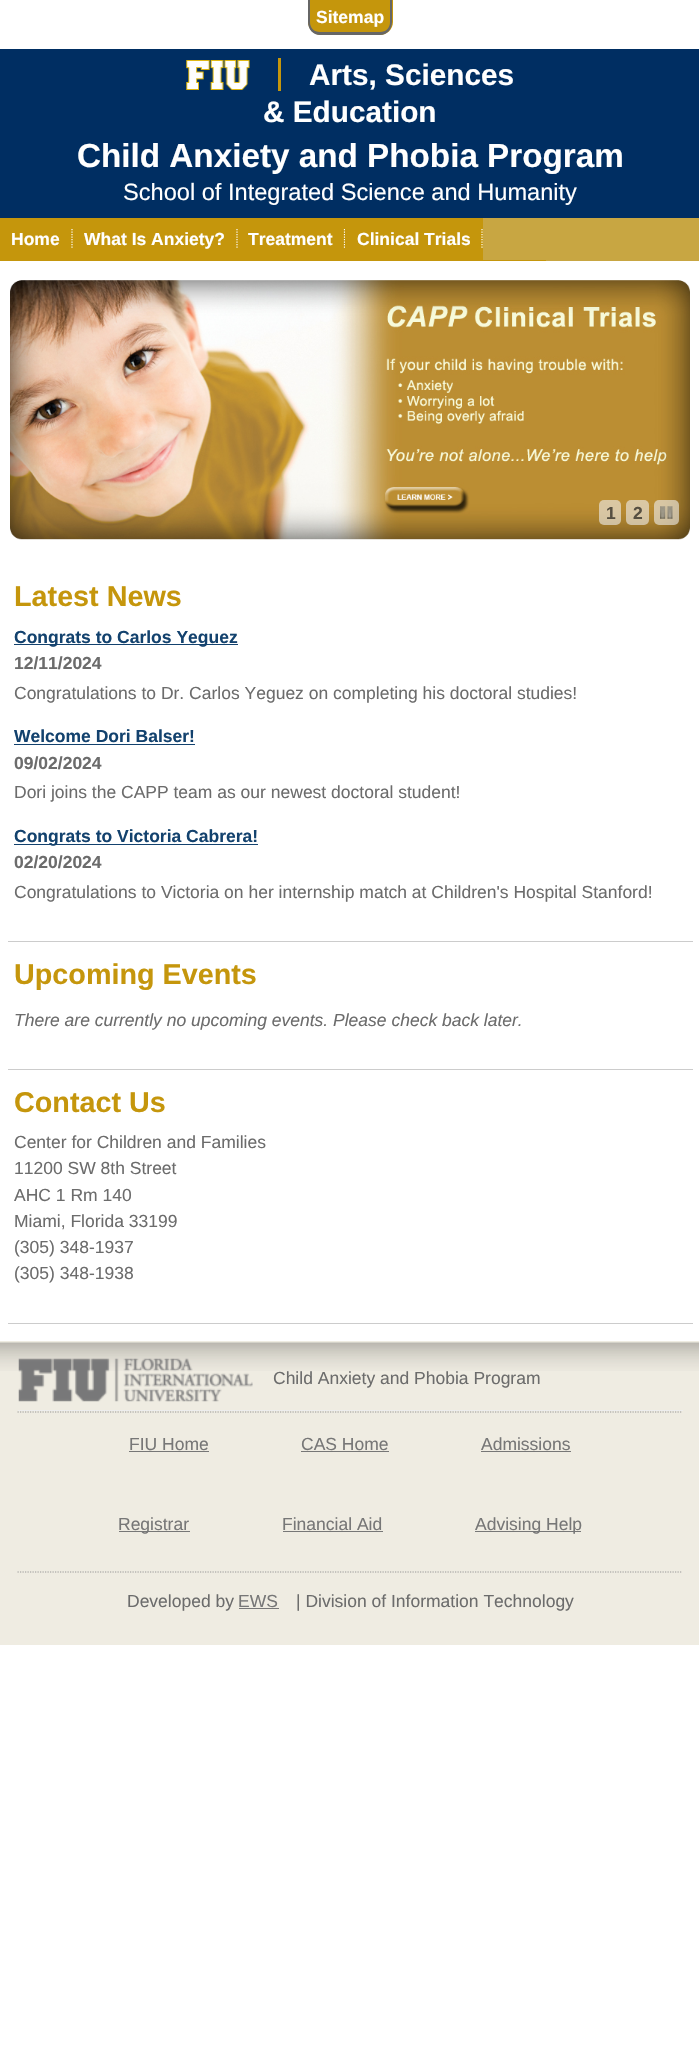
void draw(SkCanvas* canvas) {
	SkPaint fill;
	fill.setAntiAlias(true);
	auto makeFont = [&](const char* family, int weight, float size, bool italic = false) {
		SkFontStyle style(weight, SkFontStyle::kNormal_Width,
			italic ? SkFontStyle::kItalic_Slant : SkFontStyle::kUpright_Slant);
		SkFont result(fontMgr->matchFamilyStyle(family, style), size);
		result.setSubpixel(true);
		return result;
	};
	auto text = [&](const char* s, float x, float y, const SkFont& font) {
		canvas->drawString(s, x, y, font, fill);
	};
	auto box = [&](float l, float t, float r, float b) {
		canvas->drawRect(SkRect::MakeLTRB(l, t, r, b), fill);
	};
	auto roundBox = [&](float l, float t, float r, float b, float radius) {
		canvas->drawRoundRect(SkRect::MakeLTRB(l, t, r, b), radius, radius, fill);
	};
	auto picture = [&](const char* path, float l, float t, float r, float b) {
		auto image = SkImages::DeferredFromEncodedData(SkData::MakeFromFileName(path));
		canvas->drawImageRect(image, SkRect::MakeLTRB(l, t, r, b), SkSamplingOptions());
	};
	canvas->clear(0xFFFFFFFF);
	fill.setColor(0xFF002E62);
	box(0, 49, 699, 218);
	fill.setColor(0xFFC5960C);
	canvas->drawPath(SkPathBuilder().moveTo(308, 0).lineTo(393, 0).lineTo(393, 22).cubicTo(393, 29, 387, 35, 380, 35).lineTo(321, 35).cubicTo(314, 35, 308, 29, 308, 22).close().detach(), fill);
	fill.setColor(0xFF666666);
	canvas->drawPath(SkPathBuilder(SkPathFillType::kEvenOdd).moveTo(308, 0).lineTo(392, 0).lineTo(392, 22).cubicTo(392, 29, 387, 35, 380, 35).lineTo(320, 35).cubicTo(313, 35, 308, 29, 308, 22).close().moveTo(310, 0).lineTo(390, 0).lineTo(390, 22).cubicTo(390, 28, 386, 32, 380, 32).lineTo(320, 32).cubicTo(314, 32, 310, 28, 310, 22).close().detach(), fill);
	picture("image0.png", 186, 60, 250, 90);
	fill.setColor(0xFFC5960C);
	box(278, 58, 281, 91);
	fill.setColor(0xFFC8A642);
	box(483, 218, 699, 261);
	fill.setColor(0xFFC5960C);
	box(0, 218, 345, 260);
	fill.setStyle(SkPaint::kStroke_Style);
	fill.setStrokeWidth(1.2f);
	fill.setColor(0xFFFFFFFF);
	fill.setPathEffect(SkDashPathEffect::Make({{1.25f, 1.25f}}, 0));
	canvas->drawPath(SkPathBuilder().moveTo(72, 229).lineTo(72, 249).detach(), fill);
	fill.setPathEffect(nullptr);
	fill.setPathEffect(SkDashPathEffect::Make({{1.25f, 1.25f}}, 0));
	canvas->drawPath(SkPathBuilder().moveTo(237, 229).lineTo(237, 249).detach(), fill);
	fill.setPathEffect(nullptr);
	fill.setPathEffect(SkDashPathEffect::Make({{1.25f, 1.25f}}, 0));
	canvas->drawPath(SkPathBuilder().moveTo(344.5f, 229).lineTo(344.5f, 249).detach(), fill);
	fill.setPathEffect(nullptr);
	fill.setStyle(SkPaint::kFill_Style);
	fill.setColor(0xFFC5960C);
	box(345, 218, 483, 260);
	fill.setStyle(SkPaint::kStroke_Style);
	fill.setColor(0xFFFFFFFF);
	fill.setPathEffect(SkDashPathEffect::Make({{1.25f, 1.25f}}, 0));
	canvas->drawPath(SkPathBuilder().moveTo(482, 229).lineTo(482, 249).detach(), fill);
	fill.setPathEffect(nullptr);
	fill.setStyle(SkPaint::kFill_Style);
	fill.setColor(0xFFC5960C);
	box(0, 260, 546, 261);
	picture("image1.png", 10, 280, 690, 540);
	fill.setColor(0x99EEEEEE);
	roundBox(599, 500, 621, 525, 5);
	roundBox(626, 500, 649, 525, 5);
	roundBox(654, 500, 679, 525, 5);
	picture("image2.png", 660, 506, 673, 519);
	fill.setColor(0xFFCCCCCC);
	box(8, 941, 693, 942);
	fill.setColor(0xFF13426E);
	box(14, 644, 238, 645);
	box(14, 744, 195, 745);
	box(14, 844, 258, 845);
	fill.setColor(0xFFCCCCCC);
	box(8, 1069, 693, 1070);
	box(8, 1323, 693, 1324);
	fill.setColor(0xFFEFECE2);
	box(0, 1341, 699, 1645);
	picture("image3.png", 0, 1342, 699, 1371);
	picture("image4.png", 18, 1358, 253, 1402);
	fill.setColor(0xFFEEEEEE);
	box(18, 1410, 683, 1411);
	fill.setStyle(SkPaint::kStroke_Style);
	fill.setColor(0xFF999999);
	fill.setPathEffect(SkDashPathEffect::Make({{1.25f, 1.25f}}, 0));
	canvas->drawPath(SkPathBuilder().moveTo(17.5f, 1412).lineTo(682.5f, 1412).detach(), fill);
	fill.setPathEffect(nullptr);
	fill.setPathEffect(SkDashPathEffect::Make({{1.25f, 1.25f}}, 0));
	canvas->drawPath(SkPathBuilder().moveTo(17.5f, 1572).lineTo(682.5f, 1572).detach(), fill);
	fill.setPathEffect(nullptr);
	fill.setStyle(SkPaint::kFill_Style);
	fill.setColor(0xFF777777);
	box(129, 1451, 209, 1452);
	box(301, 1451, 389, 1452);
	box(481, 1451, 571, 1452);
	box(119, 1531, 190, 1532);
	box(283, 1531, 383, 1532);
	box(475, 1531, 581, 1532);
	box(239, 1608, 279, 1609);
	auto font1 = makeFont("Liberation Sans", 700, 17.5f);
	fill.setColor(0xFFFFFFFF);
	text("Sitemap", 316, 23, font1);
	auto font2 = makeFont("Liberation Sans", 700, 29.75f);
	text("Arts, Sciences", 309, 85, font2);
	text("& Education", 263, 122, font2);
	auto font3 = makeFont("Liberation Sans", 700, 33.25f);
	text("Child Anxiety and Phobia Program", 77, 167, font3);
	auto font4 = makeFont("Liberation Sans", 400, 23.6f);
	text("School of Integrated Science and Humanity", 123, 200, font4);
	text("Home", 11, 245, font1);
	text("What Is Anxiety?", 84, 245, font1);
	text("Treatment", 248, 245, font1);
	text("Clinical Trials", 357, 245, font1);
	fill.setColor(0xFF564F41);
	text("1", 606, 519, font1);
	text("2", 633, 519, font1);
	auto font5 = makeFont("Liberation Sans", 700, 28.75f);
	fill.setColor(0xFFC5960C);
	text("Latest News", 14, 606, font5);
	fill.setColor(0xFF13426E);
	text("Congrats to Carlos Yeguez", 14, 643, font1);
	fill.setColor(0xFF6C6C6C);
	text("12/11/2024", 14, 669, font1);
	auto font6 = makeFont("Liberation Sans", 400, 17.5f);
	text("Congratulations to Dr. Carlos Yeguez on completing his doctoral studies!", 14, 699, font6);
	fill.setColor(0xFF13426E);
	text("Welcome Dori Balser!", 14, 742, font1);
	fill.setColor(0xFF6C6C6C);
	text("09/02/2024", 14, 769, font1);
	text("Dori joins the CAPP team as our newest doctoral student!", 14, 798, font6);
	fill.setColor(0xFF13426E);
	text("Congrats to Victoria Cabrera!", 14, 842, font1);
	fill.setColor(0xFF6C6C6C);
	text("02/20/2024", 14, 868, font1);
	text("Congratulations to Victoria on her internship match at Children's Hospital Stanford!", 14, 898, font6);
	fill.setColor(0xFFC5960C);
	text("Upcoming Events", 14, 984, font5);
	auto font7 = makeFont("Liberation Sans", 400, 17.5f, true);
	fill.setColor(0xFF6C6C6C);
	text("There are currently no upcoming events. Please check back later.", 14, 1026, font7);
	fill.setColor(0xFFC5960C);
	text("Contact Us", 14, 1112, font5);
	fill.setColor(0xFF6C6C6C);
	text("Center for Children and Families", 14, 1148, font6);
	text("11200 SW 8th Street", 14, 1174, font6);
	text("AHC 1 Rm 140", 14, 1201, font6);
	text("Miami, Florida 33199", 14, 1227, font6);
	text("(305) 348-1937", 14, 1253, font6);
	text("(305) 348-1938", 14, 1279, font6);
	text("Child Anxiety and Phobia Program", 273, 1384, font6);
	fill.setColor(0xFF777777);
	text("FIU Home", 129, 1450, font6);
	text("CAS Home", 301, 1450, font6);
	text("Admissions", 481, 1450, font6);
	text("Registrar", 118, 1530, font6);
	text("Financial Aid", 282, 1530, font6);
	text("Advising Help", 475, 1530, font6);
	fill.setColor(0xFF6C6C6C);
	text("Developed by", 127, 1607, font6);
	fill.setColor(0xFF777777);
	text("EWS", 238, 1607, font6);
	fill.setColor(0xFF6C6C6C);
	text("| Division of Information Technology", 296, 1607, font6);
}
